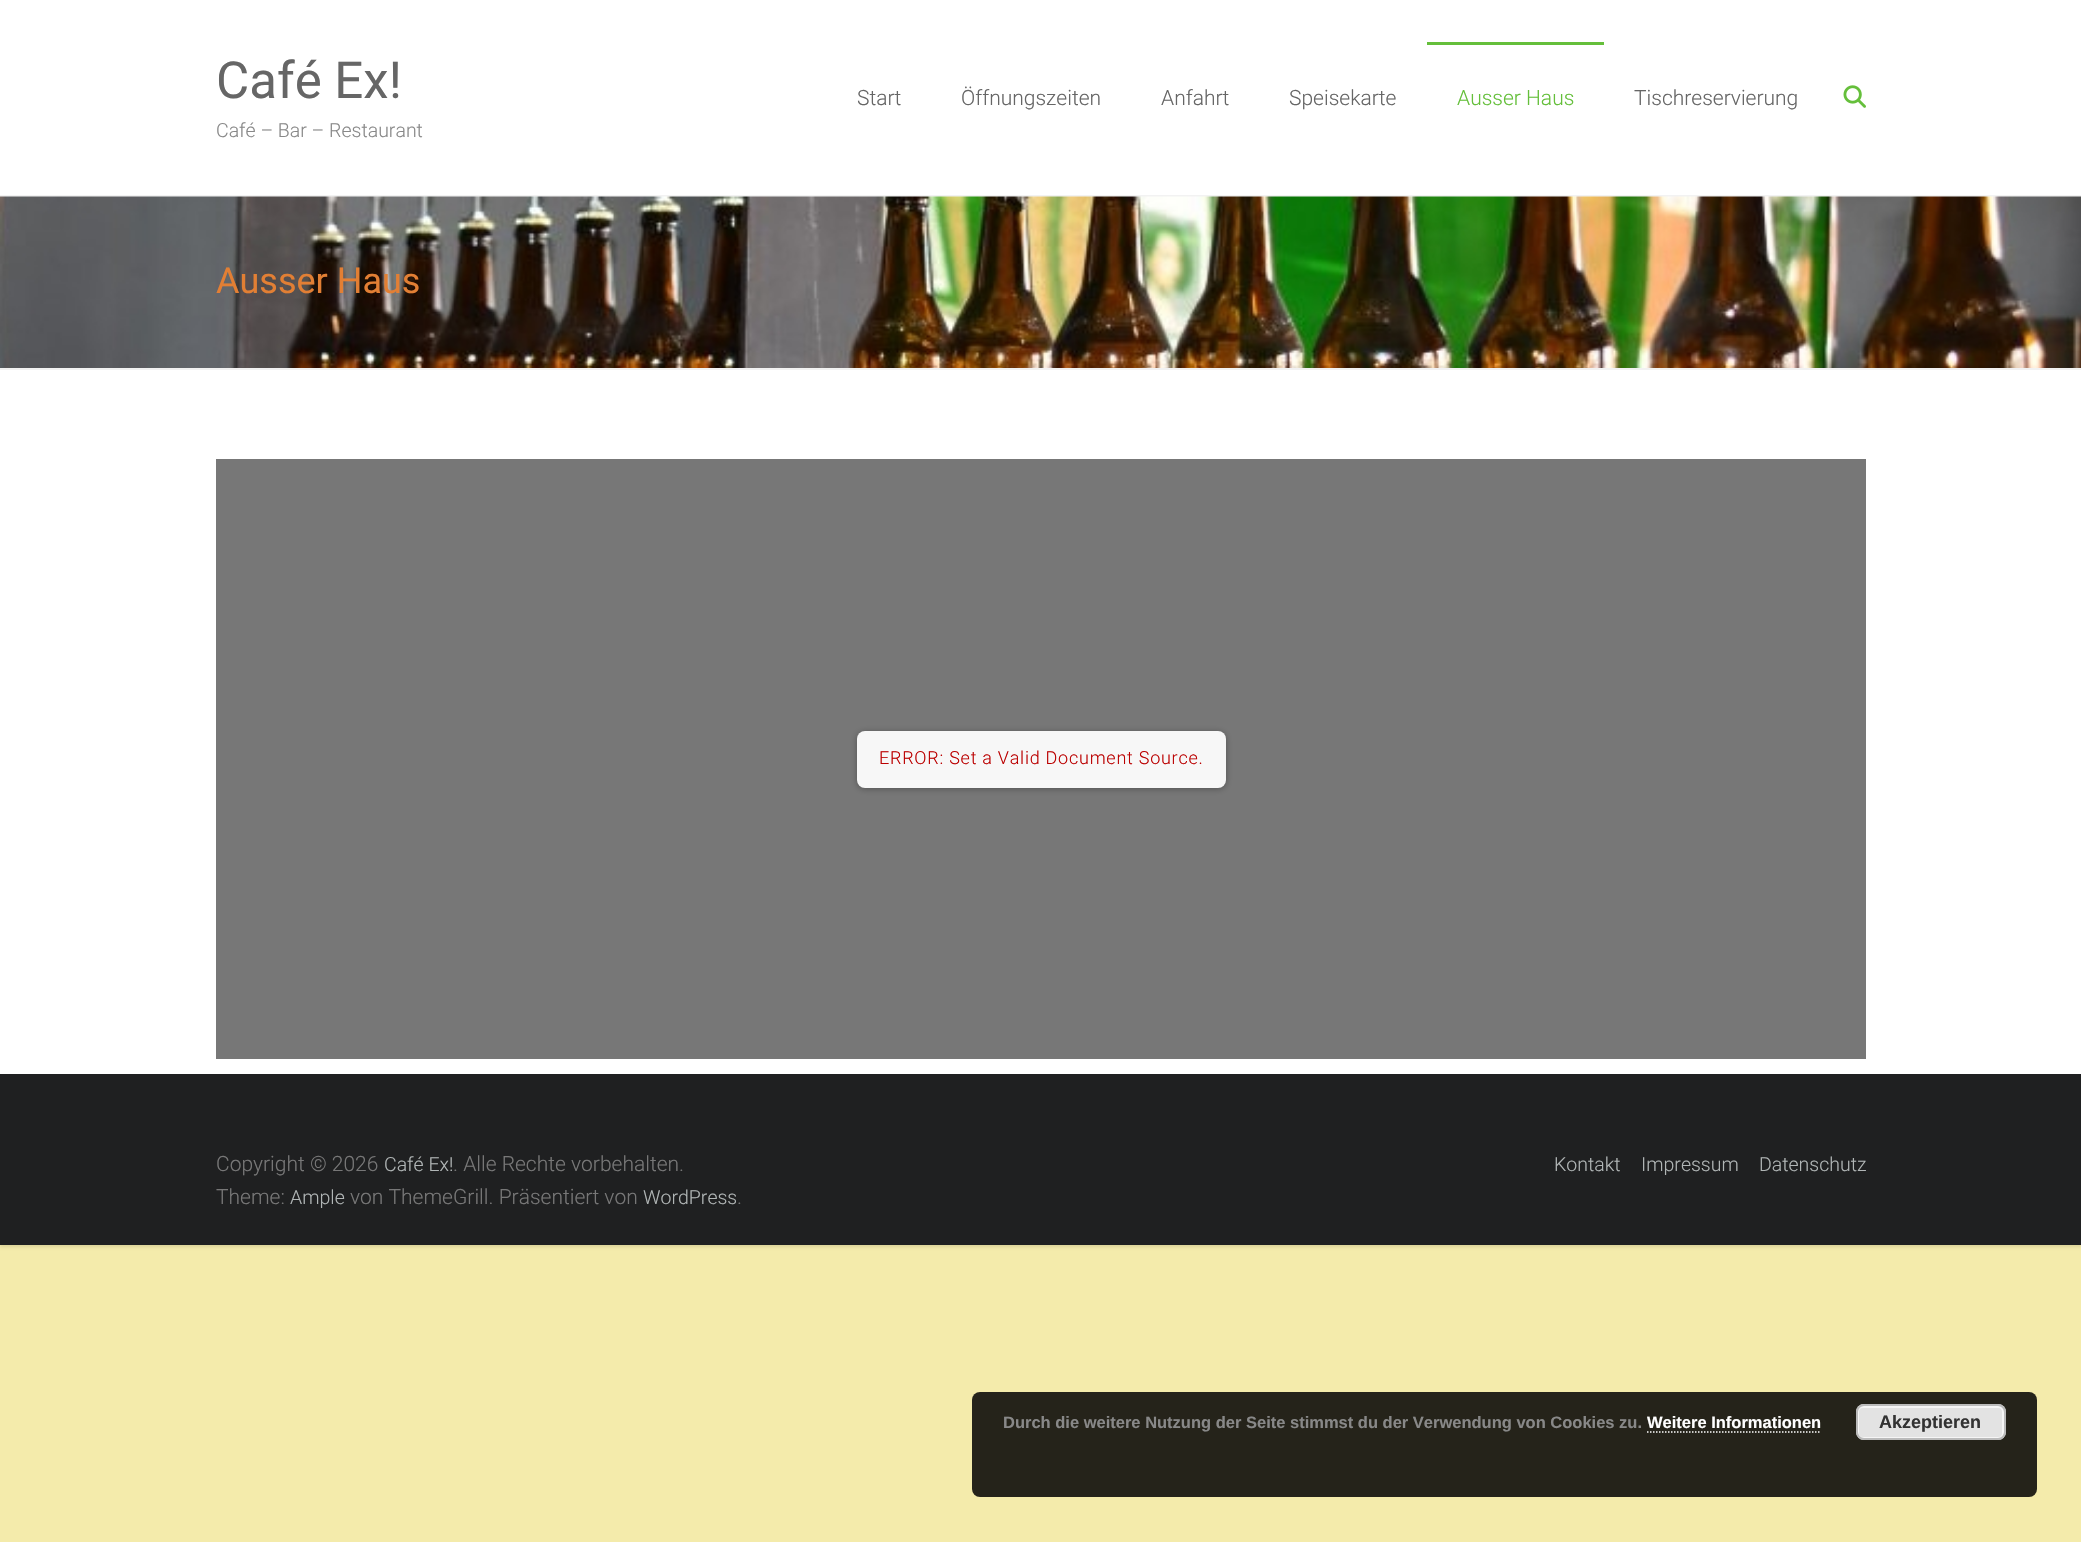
void draw(SkCanvas* canvas) {
	SkPaint fill;
	fill.setAntiAlias(true);
	auto makeFont = [&](const char* family, int weight, float size, bool italic = false) {
		SkFontStyle style(weight, SkFontStyle::kNormal_Width,
			italic ? SkFontStyle::kItalic_Slant : SkFontStyle::kUpright_Slant);
		SkFont result(fontMgr->matchFamilyStyle(family, style), size);
		result.setSubpixel(true);
		return result;
	};
	auto text = [&](const char* s, float x, float y, const SkFont& font) {
		canvas->drawString(s, x, y, font, fill);
	};
	auto spacedText = [&](const char* s, float x, float y, const SkFont& font, const SkPaint& ink, float letter, float word) {
		std::vector<SkGlyphID> glyphs(font.countText(s, strlen(s), SkTextEncoding::kUTF8));
		std::vector<float> xs(glyphs.size());
		font.textToGlyphs(s, strlen(s), SkTextEncoding::kUTF8, glyphs);
		font.getXPos(glyphs, xs, x);
		float extra = 0;
		for (size_t i = 0; i < glyphs.size(); i++) {
			xs[i] += extra;
			extra += letter + word * (glyphs[i] == font.unicharToGlyph(' '));
		}
		canvas->drawTextBlob(SkTextBlob::MakeFromPosHGlyphs(glyphs, xs, y, font), 0, 0, ink);
	};
	auto box = [&](float l, float t, float r, float b) {
		canvas->drawRect(SkRect::MakeLTRB(l, t, r, b), fill);
	};
	auto roundBox = [&](float l, float t, float r, float b, float radius) {
		canvas->drawRoundRect(SkRect::MakeLTRB(l, t, r, b), radius, radius, fill);
	};
	auto picture = [&](const char* path, float l, float t, float r, float b) {
		auto image = SkImages::DeferredFromEncodedData(SkData::MakeFromFileName(path));
		canvas->drawImageRect(image, SkRect::MakeLTRB(l, t, r, b), SkSamplingOptions());
	};
	canvas->clear(0xFFF4EBAB);
	fill.setColor(0x1A000000);
	fill.setMaskFilter(SkMaskFilter::MakeBlur(kNormal_SkBlurStyle, 1.5f));
	canvas->drawRect(SkRect::MakeLTRB(0, 2, 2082, 1247), fill);
	fill.setMaskFilter(nullptr);
	fill.setColor(0xFFFFFFFF);
	box(0, 0, 2081, 1074);
	fill.setColor(0xFFF2F2F2);
	box(0, 195, 2081, 197);
	fill.setColor(0xFF65BF3B);
	box(1427, 42, 1604, 45);
	picture("image0.png", 1843, 85, 1866, 108);
	picture("image1.png", 0, 196, 2081, 368);
	fill.setColor(0xFFF2F2F2);
	box(0, 368, 2081, 370);
	fill.setColor(0xFF777777);
	box(216, 459, 1866, 1059);
	fill.setColor(0x4D000000);
	fill.setMaskFilter(SkMaskFilter::MakeBlur(kNormal_SkBlurStyle, 3));
	canvas->drawRoundRect(SkRect::MakeLTRB(857, 732, 1226, 789), 8, 8, fill);
	fill.setMaskFilter(nullptr);
	fill.setColor(0xFFF7F7F7);
	roundBox(857, 731, 1226, 788, 8);
	fill.setColor(0xFF1F2021);
	box(0, 1074, 2081, 1245);
	fill.setColor(0xFF25231A);
	roundBox(972, 1392, 2037, 1497, 8);
	fill.setStyle(SkPaint::kStroke_Style);
	fill.setStrokeWidth(1.5f);
	fill.setColor(0xFFFFFFFF);
	fill.setPathEffect(SkDashPathEffect::Make({{1.5f, 1.5f}}, 0));
	canvas->drawPath(SkPathBuilder().moveTo(1647, 1432).lineTo(1821, 1432).detach(), fill);
	fill.setPathEffect(nullptr);
	fill.setStyle(SkPaint::kFill_Style);
	fill.setColor(0xFFE3E3E3);
	roundBox(1856, 1404, 2006, 1440, 8);
	fill.setStyle(SkPaint::kStroke_Style);
	fill.setStrokeWidth(2);
	fill.setColor(0xFFF6F6F6);
	canvas->drawRoundRect(SkRect::MakeLTRB(1858, 1407, 2003, 1438), 5, 5, fill);
	fill.setColor(0xFFBBBBBB);
	canvas->drawRoundRect(SkRect::MakeLTRB(1857, 1405, 2005, 1439), 7, 7, fill);
	auto font1 = makeFont("Roboto", 400, 51);
	fill.setStyle(SkPaint::kFill_Style);
	fill.setColor(0xFF666666);
	text("Café Ex!", 216, 98, font1);
	auto font2 = makeFont("Roboto", 300, 19.5f);
	fill.setColor(0xFF888888);
	text("Café – Bar – Restaurant", 216, 137, font2);
	auto font3 = makeFont("Roboto", 300, 21);
	fill.setColor(0xFF666666);
	text("Start", 857, 105, font3);
	text("Öffnungszeiten", 961, 105, font3);
	text("Anfahrt", 1161, 105, font3);
	text("Speisekarte", 1289, 105, font3);
	fill.setColor(0xFF65BF3B);
	text("Ausser Haus", 1457, 105, font3);
	fill.setColor(0xFF666666);
	text("Tischreservierung", 1634, 105, font3);
	auto font4 = makeFont("Roboto", 400, 36);
	fill.setColor(0xFFE27F34);
	text("Ausser Haus", 216, 293, font4);
	auto font5 = makeFont("Roboto", 300, 18);
	fill.setColor(0xFFBB0000);
	spacedText("ERROR: Set a Valid Document Source.", 879, 764, font5, fill, 0.75f, 0);
	fill.setColor(0xFF777777);
	text("Copyright © 2026", 216, 1171, font3);
	fill.setColor(0xFFB1B6B6);
	text("Café Ex!", 384, 1171, font2);
	fill.setColor(0xFF777777);
	text(". Alle Rechte vorbehalten.", 453, 1171, font3);
	text("Theme:", 216, 1204, font3);
	fill.setColor(0xFFB1B6B6);
	text("Ample", 290, 1204, font2);
	fill.setColor(0xFF777777);
	text("von ThemeGrill. Präsentiert von", 350, 1204, font3);
	fill.setColor(0xFFB1B6B6);
	text("WordPress", 643, 1204, font2);
	fill.setColor(0xFF777777);
	text(".", 737, 1204, font3);
	fill.setColor(0xFFB1B6B6);
	text("Kontakt", 1554, 1171, font2);
	text("Impressum", 1641, 1171, font2);
	text("Datenschutz", 1759, 1171, font2);
	auto font6 = makeFont("Liberation Sans", 700, 16.5f);
	fill.setColor(0xFF888888);
	text("Durch die weitere Nutzung der Seite stimmst du der Verwendung von Cookies zu.", 1003, 1428, font6);
	fill.setColor(0xFFFFFFFF);
	text("Weitere Informationen", 1647, 1428, font6);
	auto font7 = makeFont("Liberation Sans", 700, 18);
	fill.setColor(0xFF333333);
	text("Akzeptieren", 1879, 1428, font7);
}
